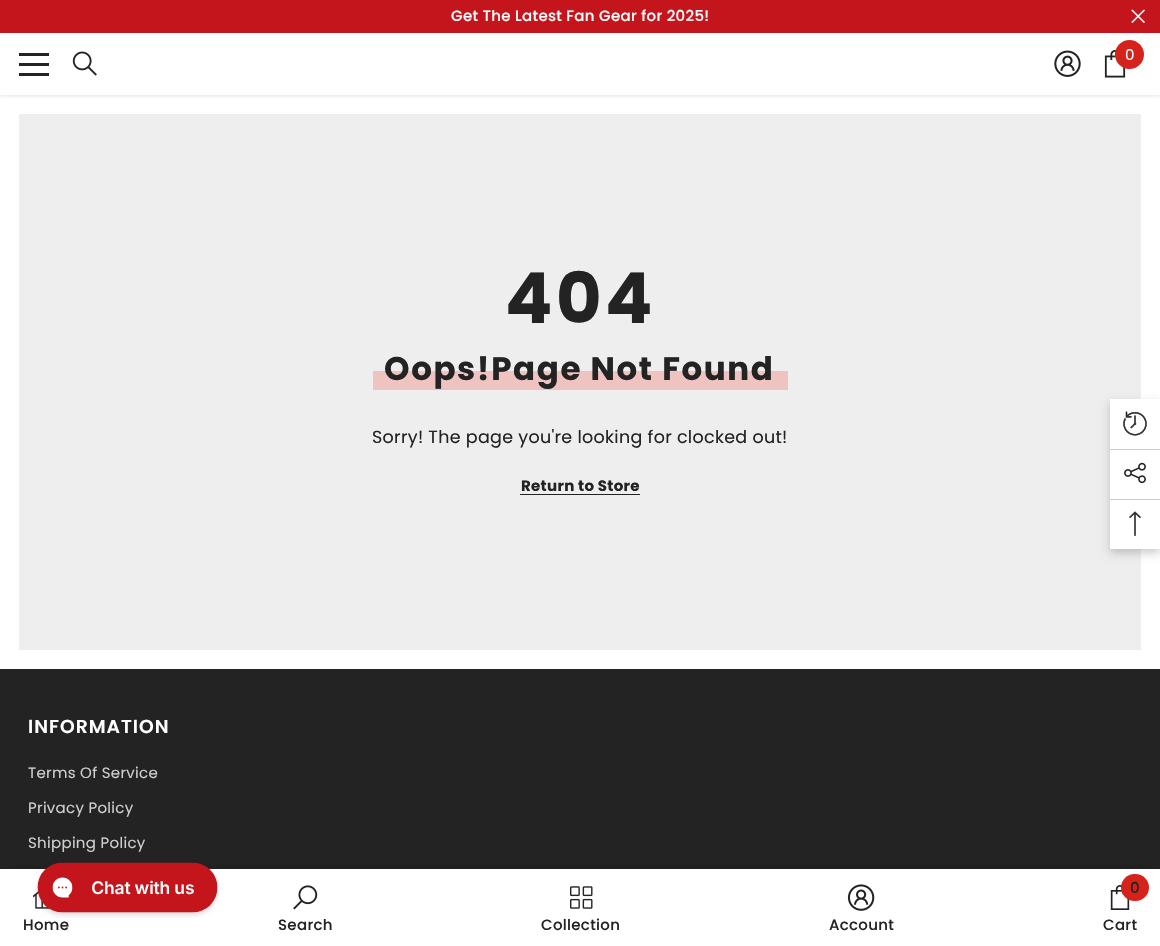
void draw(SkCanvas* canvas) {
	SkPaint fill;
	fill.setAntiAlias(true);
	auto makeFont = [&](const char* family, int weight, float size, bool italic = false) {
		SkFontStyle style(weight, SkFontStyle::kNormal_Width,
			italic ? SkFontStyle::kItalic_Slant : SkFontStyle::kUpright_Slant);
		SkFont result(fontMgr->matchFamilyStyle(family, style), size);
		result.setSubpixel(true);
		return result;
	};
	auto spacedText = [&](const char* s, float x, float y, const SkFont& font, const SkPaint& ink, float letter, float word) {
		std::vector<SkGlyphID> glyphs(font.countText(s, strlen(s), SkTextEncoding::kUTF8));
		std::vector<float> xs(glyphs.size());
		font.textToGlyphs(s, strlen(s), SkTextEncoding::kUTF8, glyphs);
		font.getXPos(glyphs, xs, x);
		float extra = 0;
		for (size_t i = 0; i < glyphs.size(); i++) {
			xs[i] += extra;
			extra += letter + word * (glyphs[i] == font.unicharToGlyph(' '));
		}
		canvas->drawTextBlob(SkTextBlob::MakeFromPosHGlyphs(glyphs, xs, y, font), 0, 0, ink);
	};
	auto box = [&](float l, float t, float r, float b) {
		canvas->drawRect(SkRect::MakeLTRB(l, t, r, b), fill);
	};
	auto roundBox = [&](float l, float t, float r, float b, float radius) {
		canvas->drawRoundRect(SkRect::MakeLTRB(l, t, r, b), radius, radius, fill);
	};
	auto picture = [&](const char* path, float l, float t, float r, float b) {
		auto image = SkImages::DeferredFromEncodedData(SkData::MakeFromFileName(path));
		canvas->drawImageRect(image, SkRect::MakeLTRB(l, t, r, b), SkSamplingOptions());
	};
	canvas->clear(0xFFFFFFFF);
	fill.setColor(0xFFC4151D);
	box(0, 0, 1160, 33);
	picture("image0.png", 1131, 9, 1145, 23);
	canvas->save();
	canvas->clipRect(SkRect::MakeLTRB(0, 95, 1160, 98));
	fill.setColor(0x1A000000);
	fill.setMaskFilter(SkMaskFilter::MakeBlur(kNormal_SkBlurStyle, 2));
	canvas->drawRect(SkRect::MakeLTRB(0, 34, 1160, 96), fill);
	fill.setMaskFilter(nullptr);
	canvas->restore();
	fill.setColor(0xFF232323);
	box(19, 63, 49, 66);
	box(19, 53, 49, 56);
	box(19, 73, 49, 76);
	picture("image1.png", 72, 51, 97, 76);
	picture("image2.png", 1054, 50, 1081, 77);
	picture("image3.png", 1104, 50, 1126, 78);
	fill.setColor(0xFFD5231C);
	canvas->drawCircle(1129.5f, 54.5f, 14.5f, fill);
	fill.setColor(0xFFEEEEEE);
	box(19, 114, 1141, 650);
	fill.setColor(0xFFEFC3C0);
	box(373, 371, 788, 390);
	fill.setColor(0xFF232323);
	box(520, 494, 640, 495);
	box(0, 669, 1160, 869);
	fill.setColor(0x1F000000);
	fill.setMaskFilter(SkMaskFilter::MakeBlur(kNormal_SkBlurStyle, 5.5f));
	canvas->drawRect(SkRect::MakeLTRB(0, 869, 1160, 946), fill);
	fill.setMaskFilter(nullptr);
	fill.setColor(0xFFFFFFFF);
	box(0, 869, 1160, 946);
	picture("image4.png", 33, 891, 50, 909);
	picture("image5.png", 293, 885, 318, 910);
	picture("image6.png", 570, 886, 593, 909);
	picture("image7.png", 847, 884, 875, 911);
	picture("image8.png", 1110, 885, 1130, 910);
	fill.setColor(0xFFD5231C);
	roundBox(1121, 874, 1149, 901, 13.5f);
	fill.setColor(0x33000000);
	fill.setMaskFilter(SkMaskFilter::MakeBlur(kNormal_SkBlurStyle, 4.5f));
	canvas->drawRect(SkRect::MakeLTRB(1110, 403, 1160, 553), fill);
	fill.setMaskFilter(nullptr);
	fill.setColor(0xFFFFFFFF);
	box(1110, 399, 1160, 549);
	picture("image9.png", 1123, 411, 1147, 436);
	fill.setColor(0xFFCCCCCC);
	box(1110, 449, 1160, 450);
	picture("image10.png", 1124, 462, 1146, 484);
	box(1110, 499, 1160, 500);
	picture("image11.png", 1129, 511, 1141, 536);
	picture("image12.png", 35, 862, 220, 918);
	auto font1 = makeFont("Poppins", 500, 15);
	fill.setColor(0xFFFFFFFF);
	spacedText("Get The Latest Fan Gear for 2025!", 451, 21, font1, fill, 0.3f, 0);
	auto font2 = makeFont("Poppins", 400, 15);
	spacedText("0", 1125, 60, font2, fill, 0.3f, 0);
	auto font3 = makeFont("Poppins", 700, 70);
	fill.setColor(0xFF232323);
	spacedText("404", 505, 323, font3, fill, 3.5f, 0);
	auto font4 = makeFont("Poppins", 700, 32.5f);
	spacedText("Oops!Page Not Found", 384, 380, font4, fill, 1.6f, 0);
	auto font5 = makeFont("Poppins", 400, 17.5f);
	spacedText("Sorry! The page you're looking for clocked out!", 372, 443, font5, fill, 0.3f, 0);
	auto font6 = makeFont("Poppins", 700, 15);
	spacedText("Return to Store", 521, 491, font6, fill, 0.3f, 0);
	auto font7 = makeFont("Poppins", 600, 18.75f);
	fill.setColor(0xFFFFFFFF);
	spacedText("INFORMATION", 28, 733, font7, fill, 1, 0);
	fill.setColor(0xFFCFCFCF);
	spacedText("Terms Of Service", 28, 778, font2, fill, 0.3f, 0);
	spacedText("Privacy Policy", 28, 813, font2, fill, 0.3f, 0);
	spacedText("Shipping Policy", 28, 848, font2, fill, 0.3f, 0);
	fill.setColor(0xFF232323);
	spacedText("Home", 23, 930, font1, fill, 0.3f, 0);
	spacedText("Search", 278, 930, font1, fill, 0.3f, 0);
	spacedText("Collection", 541, 930, font1, fill, 0.3f, 0);
	spacedText("Account", 829, 930, font1, fill, 0.3f, 0);
	spacedText("0", 1130, 893, font1, fill, 0.3f, 0);
	spacedText("Cart", 1103, 930, font1, fill, 0.3f, 0);
}
